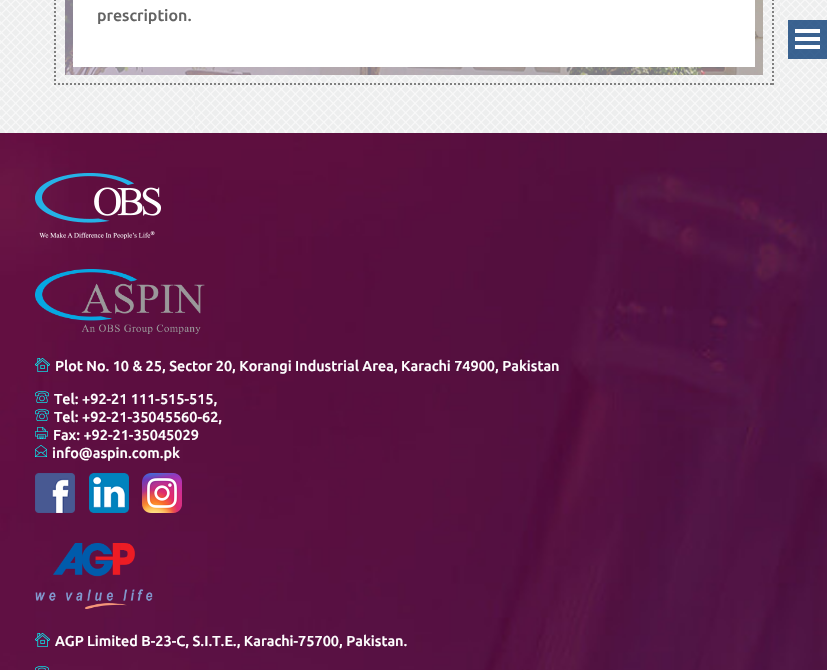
void draw(SkCanvas* canvas) {
	SkPaint fill;
	fill.setAntiAlias(true);
	auto makeFont = [&](const char* family, int weight, float size, bool italic = false) {
		SkFontStyle style(weight, SkFontStyle::kNormal_Width,
			italic ? SkFontStyle::kItalic_Slant : SkFontStyle::kUpright_Slant);
		SkFont result(fontMgr->matchFamilyStyle(family, style), size);
		result.setSubpixel(true);
		return result;
	};
	auto text = [&](const char* s, float x, float y, const SkFont& font) {
		canvas->drawString(s, x, y, font, fill);
	};
	auto box = [&](float l, float t, float r, float b) {
		canvas->drawRect(SkRect::MakeLTRB(l, t, r, b), fill);
	};
	auto picture = [&](const char* path, float l, float t, float r, float b) {
		auto image = SkImages::DeferredFromEncodedData(SkData::MakeFromFileName(path));
		canvas->drawImageRect(image, SkRect::MakeLTRB(l, t, r, b), SkSamplingOptions());
	};
	canvas->clear(0xFFFFFFFF);
	picture("image0.png", 0, 0, 827, 133);
	fill.setStyle(SkPaint::kStroke_Style);
	fill.setStrokeWidth(2);
	fill.setColor(0xFF808080);
	fill.setPathEffect(SkDashPathEffect::Make({{2, 2}}, 0));
	canvas->drawPath(SkPathBuilder().moveTo(773, -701).lineTo(773, 85).detach(), fill);
	fill.setPathEffect(nullptr);
	fill.setPathEffect(SkDashPathEffect::Make({{2, 2}}, 0));
	canvas->drawPath(SkPathBuilder().moveTo(54, 84).lineTo(774, 84).detach(), fill);
	fill.setPathEffect(nullptr);
	fill.setPathEffect(SkDashPathEffect::Make({{2, 2}}, 0));
	canvas->drawPath(SkPathBuilder().moveTo(55, -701).lineTo(55, 85).detach(), fill);
	fill.setPathEffect(nullptr);
	picture("image1.png", 65, 0, 763, 75);
	fill.setStyle(SkPaint::kFill_Style);
	fill.setColor(0xFFFFFFFF);
	box(73, 0, 755, 67);
	fill.setColor(0xC2003471);
	box(788, 20, 827, 59);
	fill.setColor(0xFFFFFFFF);
	box(795, 29, 820, 33);
	box(795, 37, 820, 41);
	box(795, 45, 820, 49);
	picture("image2.png", 0, 133, 827, 670);
	picture("image3.png", 35, 173, 161, 239);
	picture("image4.png", 35, 269, 205, 334);
	picture("image5.png", 35, 358, 50, 372);
	picture("image6.png", 35, 391, 49, 403);
	picture("image7.png", 35, 409, 49, 421);
	picture("image8.png", 35, 427, 48, 439);
	picture("image9.png", 35, 445, 47, 457);
	picture("image10.png", 35, 473, 75, 513);
	picture("image11.png", 89, 473, 129, 513);
	picture("image12.png", 142, 473, 182, 513);
	picture("image13.png", 35, 543, 153, 609);
	picture("image14.png", 35, 633, 50, 647);
	picture("image15.png", 35, 666, 49, 670);
	auto font1 = makeFont("Ubuntu", 500, 16);
	fill.setColor(0xFF636363);
	text("prescription.", 97, 21, font1);
	auto font2 = makeFont("Ubuntu", 500, 14.4f);
	fill.setColor(0xFFFFFFFF);
	text("Plot No. 10 & 25, Sector 20, Korangi Industrial Area, Karachi 74900, Pakistan", 55, 371, font2);
	text("Tel: +92-21 111-515-515,", 54, 404, font2);
	text("Tel: +92-21-35045560-62,", 54, 422, font2);
	text("Fax: +92-21-35045029", 53, 440, font2);
	text("info@aspin.com.pk", 52, 458, font2);
	text("AGP Limited B-23-C, S.I.T.E., Karachi-75700, Pakistan.", 55, 646, font2);
}
